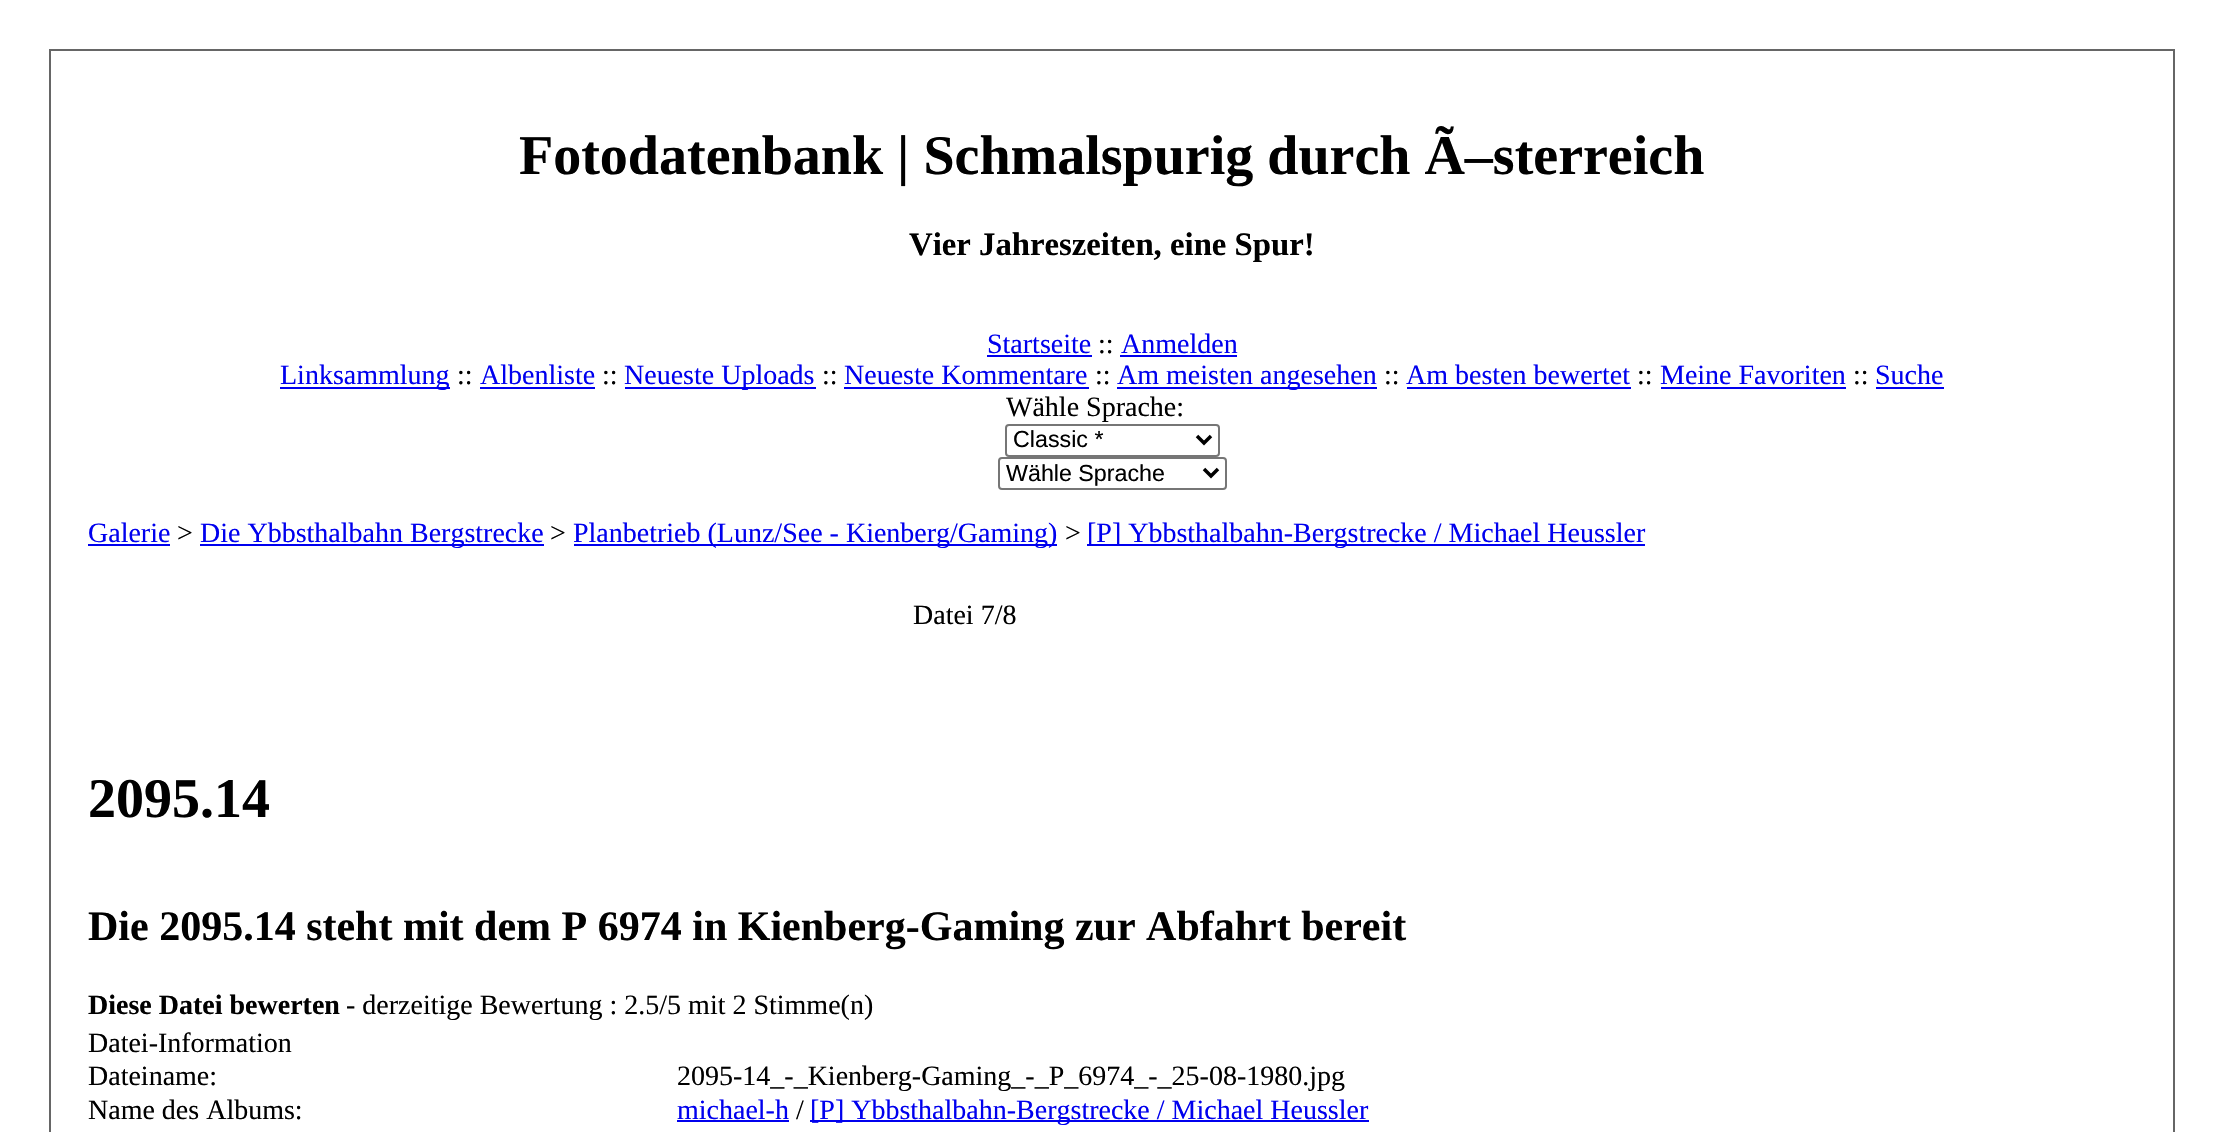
void draw(SkCanvas* canvas) {
	SkPaint fill;
	fill.setAntiAlias(true);
	auto makeFont = [&](const char* family, int weight, float size, bool italic = false) {
		SkFontStyle style(weight, SkFontStyle::kNormal_Width,
			italic ? SkFontStyle::kItalic_Slant : SkFontStyle::kUpright_Slant);
		SkFont result(fontMgr->matchFamilyStyle(family, style), size);
		result.setSubpixel(true);
		return result;
	};
	auto text = [&](const char* s, float x, float y, const SkFont& font) {
		canvas->drawString(s, x, y, font, fill);
	};
	auto box = [&](float l, float t, float r, float b) {
		canvas->drawRect(SkRect::MakeLTRB(l, t, r, b), fill);
	};
	canvas->clear(0xFFFFFFFF);
	fill.setStyle(SkPaint::kStroke_Style);
	fill.setStrokeWidth(2);
	fill.setColor(0xFF666666);
	canvas->drawRect(SkRect::MakeLTRB(50, 50, 2174, 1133), fill);
	fill.setStyle(SkPaint::kFill_Style);
	fill.setColor(0xFF0000EE);
	box(987, 355, 1092, 357);
	box(1120, 355, 1237, 357);
	box(280, 387, 450, 389);
	box(480, 387, 595, 389);
	box(625, 387, 816, 389);
	box(844, 387, 1089, 389);
	box(1117, 387, 1377, 389);
	box(1407, 387, 1631, 389);
	box(1661, 387, 1846, 389);
	box(1876, 387, 1944, 389);
	fill.setStyle(SkPaint::kStroke_Style);
	fill.setColor(0xFF767676);
	canvas->drawRoundRect(SkRect::MakeLTRB(1006, 425, 1219, 456), 3, 3, fill);
	fill.setStrokeWidth(3.5f);
	fill.setColor(0xFF000000);
	canvas->drawPath(SkPathBuilder().moveTo(1197, 436).lineTo(1204, 443).lineTo(1211, 436).detach(), fill);
	fill.setStrokeWidth(2);
	fill.setColor(0xFF767676);
	canvas->drawRoundRect(SkRect::MakeLTRB(999, 458, 1226, 489), 3, 3, fill);
	fill.setStrokeWidth(3.5f);
	fill.setColor(0xFF000000);
	canvas->drawPath(SkPathBuilder().moveTo(1204, 469).lineTo(1211, 476).lineTo(1218, 469).detach(), fill);
	fill.setStyle(SkPaint::kFill_Style);
	fill.setColor(0xFF0000EE);
	box(88, 544, 170, 546);
	box(200, 544, 544, 546);
	box(574, 544, 1057, 546);
	box(1087, 544, 1645, 546);
	box(677, 1120, 789, 1122);
	box(810, 1120, 1369, 1122);
	auto font1 = makeFont("Liberation Serif", 700, 56);
	fill.setColor(0xFF000000);
	text("Fotodatenbank | Schmalspurig durch Ã–sterreich", 519, 174, font1);
	auto font2 = makeFont("Liberation Serif", 700, 32.75f);
	text("Vier Jahreszeiten, eine Spur!", 909, 255, font2);
	auto font3 = makeFont("Liberation Serif", 400, 28);
	fill.setColor(0xFF0000EE);
	text("Startseite", 987, 353, font3);
	fill.setColor(0xFF000000);
	text("::", 1098, 353, font3);
	fill.setColor(0xFF0000EE);
	text("Anmelden", 1121, 353, font3);
	text("Linksammlung", 280, 384, font3);
	fill.setColor(0xFF000000);
	text("::", 457, 384, font3);
	fill.setColor(0xFF0000EE);
	text("Albenliste", 480, 384, font3);
	fill.setColor(0xFF000000);
	text("::", 602, 384, font3);
	fill.setColor(0xFF0000EE);
	text("Neueste Uploads", 624, 384, font3);
	fill.setColor(0xFF000000);
	text("::", 822, 384, font3);
	fill.setColor(0xFF0000EE);
	text("Neueste Kommentare", 844, 384, font3);
	fill.setColor(0xFF000000);
	text("::", 1095, 384, font3);
	fill.setColor(0xFF0000EE);
	text("Am meisten angesehen", 1117, 384, font3);
	fill.setColor(0xFF000000);
	text("::", 1384, 384, font3);
	fill.setColor(0xFF0000EE);
	text("Am besten bewertet", 1406, 384, font3);
	fill.setColor(0xFF000000);
	text("::", 1637, 384, font3);
	fill.setColor(0xFF0000EE);
	text("Meine Favoriten", 1660, 384, font3);
	fill.setColor(0xFF000000);
	text("::", 1853, 384, font3);
	fill.setColor(0xFF0000EE);
	text("Suche", 1875, 384, font3);
	fill.setColor(0xFF000000);
	text("Wähle Sprache:", 1006, 416, font3);
	auto font4 = makeFont("Liberation Sans", 400, 23.25f);
	text("Classic *", 1013, 447, font4);
	text("Wähle Sprache", 1006, 481, font4);
	fill.setColor(0xFF0000EE);
	text("Galerie", 88, 542, font3);
	fill.setColor(0xFF000000);
	text(">", 177, 542, font3);
	fill.setColor(0xFF0000EE);
	text("Die Ybbsthalbahn Bergstrecke", 200, 542, font3);
	fill.setColor(0xFF000000);
	text(">", 550, 542, font3);
	fill.setColor(0xFF0000EE);
	text("Planbetrieb (Lunz/See - Kienberg/Gaming)", 573, 542, font3);
	fill.setColor(0xFF000000);
	text(">", 1065, 542, font3);
	fill.setColor(0xFF0000EE);
	text("[P] Ybbsthalbahn-Bergstrecke / Michael Heussler", 1087, 542, font3);
	fill.setColor(0xFF000000);
	text("Datei 7/8", 913, 624, font3);
	text("2095.14", 88, 817, font1);
	auto font5 = makeFont("Liberation Serif", 700, 42);
	text("Die 2095.14 steht mit dem P 6974 in Kienberg-Gaming zur Abfahrt bereit", 88, 940, font5);
	auto font6 = makeFont("Liberation Serif", 700, 28);
	text("Diese Datei bewerten", 88, 1014, font6);
	text("- derzeitige Bewertung : 2.5/5 mit 2 Stimme(n)", 346, 1014, font3);
	text("Datei-Information", 88, 1052, font3);
	text("Dateiname:", 88, 1085, font3);
	text("2095-14_-_Kienberg-Gaming_-_P_6974_-_25-08-1980.jpg", 677, 1085, font3);
	text("Name des Albums:", 88, 1119, font3);
	fill.setColor(0xFF0000EE);
	text("michael-h", 677, 1119, font3);
	fill.setColor(0xFF000000);
	text("/", 796, 1119, font3);
	fill.setColor(0xFF0000EE);
	text("[P] Ybbsthalbahn-Bergstrecke / Michael Heussler", 810, 1119, font3);
}
